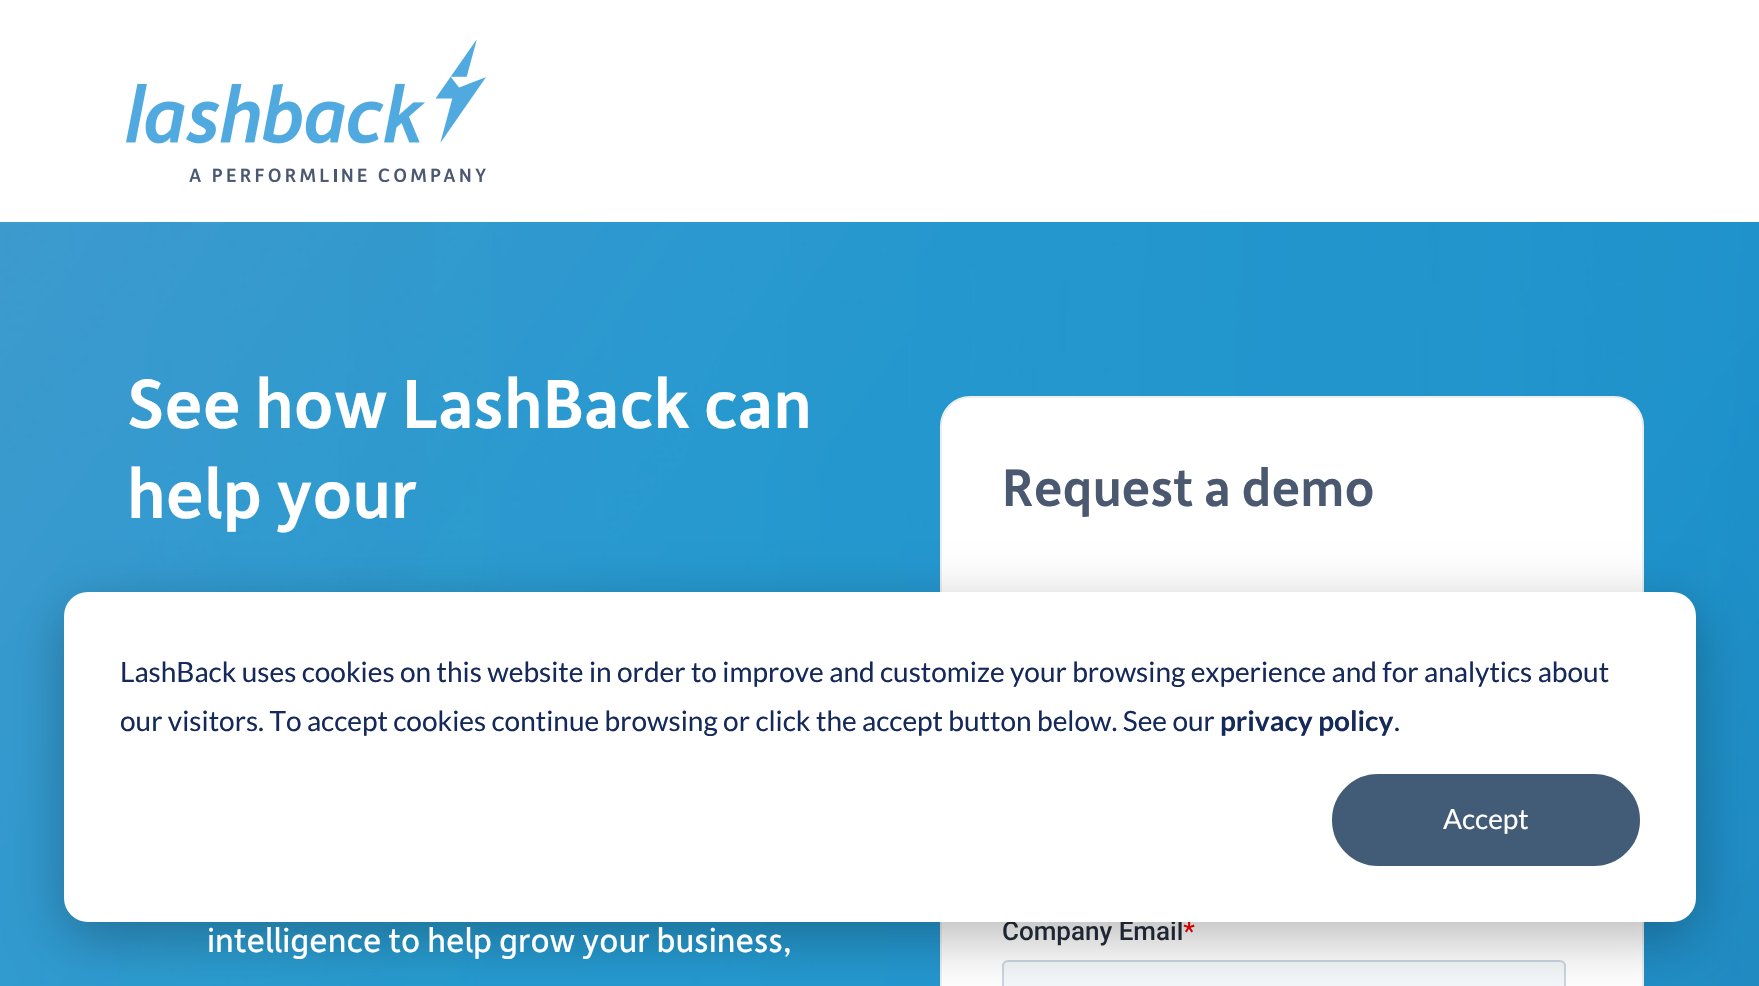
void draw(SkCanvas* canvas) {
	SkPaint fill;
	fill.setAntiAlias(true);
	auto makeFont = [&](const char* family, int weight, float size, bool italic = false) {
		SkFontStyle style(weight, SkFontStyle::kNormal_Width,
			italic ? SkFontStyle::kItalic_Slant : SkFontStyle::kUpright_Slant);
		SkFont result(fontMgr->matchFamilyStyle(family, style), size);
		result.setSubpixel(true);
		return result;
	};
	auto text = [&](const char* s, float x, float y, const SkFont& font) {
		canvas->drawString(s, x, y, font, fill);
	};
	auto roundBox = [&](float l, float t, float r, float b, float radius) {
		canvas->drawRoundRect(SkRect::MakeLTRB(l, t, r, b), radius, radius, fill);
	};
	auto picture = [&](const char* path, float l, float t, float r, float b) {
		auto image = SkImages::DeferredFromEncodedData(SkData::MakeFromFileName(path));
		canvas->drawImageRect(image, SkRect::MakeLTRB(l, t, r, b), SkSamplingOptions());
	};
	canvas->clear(0xFFFFFFFF);
	picture("image0.png", 126, 40, 486, 182);
	picture("image1.png", 0, 222, 1759, 986);
	fill.setColor(0xFFFFFFFF);
	canvas->drawRoundRect(SkRect::MakeLTRB(941, 397, 1643, 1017), 29, 29, fill);
	fill.setStyle(SkPaint::kStroke_Style);
	fill.setStrokeWidth(2);
	fill.setColor(0xFFEEEEEE);
	canvas->drawRoundRect(SkRect::MakeLTRB(941, 397, 1643, 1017), 29, 29, fill);
	picture("image2.png", 1002, 922, 1566, 986);
	fill.setStyle(SkPaint::kFill_Style);
	fill.setColor(0x47000000);
	fill.setMaskFilter(SkMaskFilter::MakeBlur(kNormal_SkBlurStyle, 28));
	canvas->drawRoundRect(SkRect::MakeLTRB(64, 608, 1696, 938), 24, 24, fill);
	fill.setMaskFilter(nullptr);
	fill.setColor(0xFFFFFFFF);
	roundBox(64, 592, 1696, 922, 24);
	fill.setColor(0xFF425B76);
	canvas->drawRoundRect(SkRect::MakeLTRB(1333, 775, 1639, 865), 45, 45, fill);
	fill.setStyle(SkPaint::kStroke_Style);
	canvas->drawRoundRect(SkRect::MakeLTRB(1333, 775, 1639, 865), 45, 45, fill);
	auto font1 = makeFont("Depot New", 500, 74);
	fill.setStyle(SkPaint::kFill_Style);
	fill.setColor(0xFFFFFFFF);
	text("See how LashBack can", 127, 428, font1);
	text("help your", 127, 518, font1);
	auto font2 = makeFont("Depot New", 400, 36);
	text("intelligence to help grow your business,", 207, 952, font2);
	auto font3 = makeFont("Depot New", 500, 56);
	fill.setColor(0xFF4A5870);
	text("Request a demo", 1002, 506, font3);
	auto font4 = makeFont("Lato", 400, 28);
	fill.setColor(0xFF15295A);
	text("LashBack uses cookies on this website in order to improve and customize your browsing experience and for analytics about", 120, 682, font4);
	text("our visitors. To accept cookies continue browsing or click the accept button below. See our", 120, 731, font4);
	auto font5 = makeFont("Lato", 700, 28);
	text("privacy policy", 1220, 731, font5);
	text(".", 1394, 731, font4);
	fill.setColor(0xFFFFFFFF);
	text("Accept", 1443, 829, font4);
}
